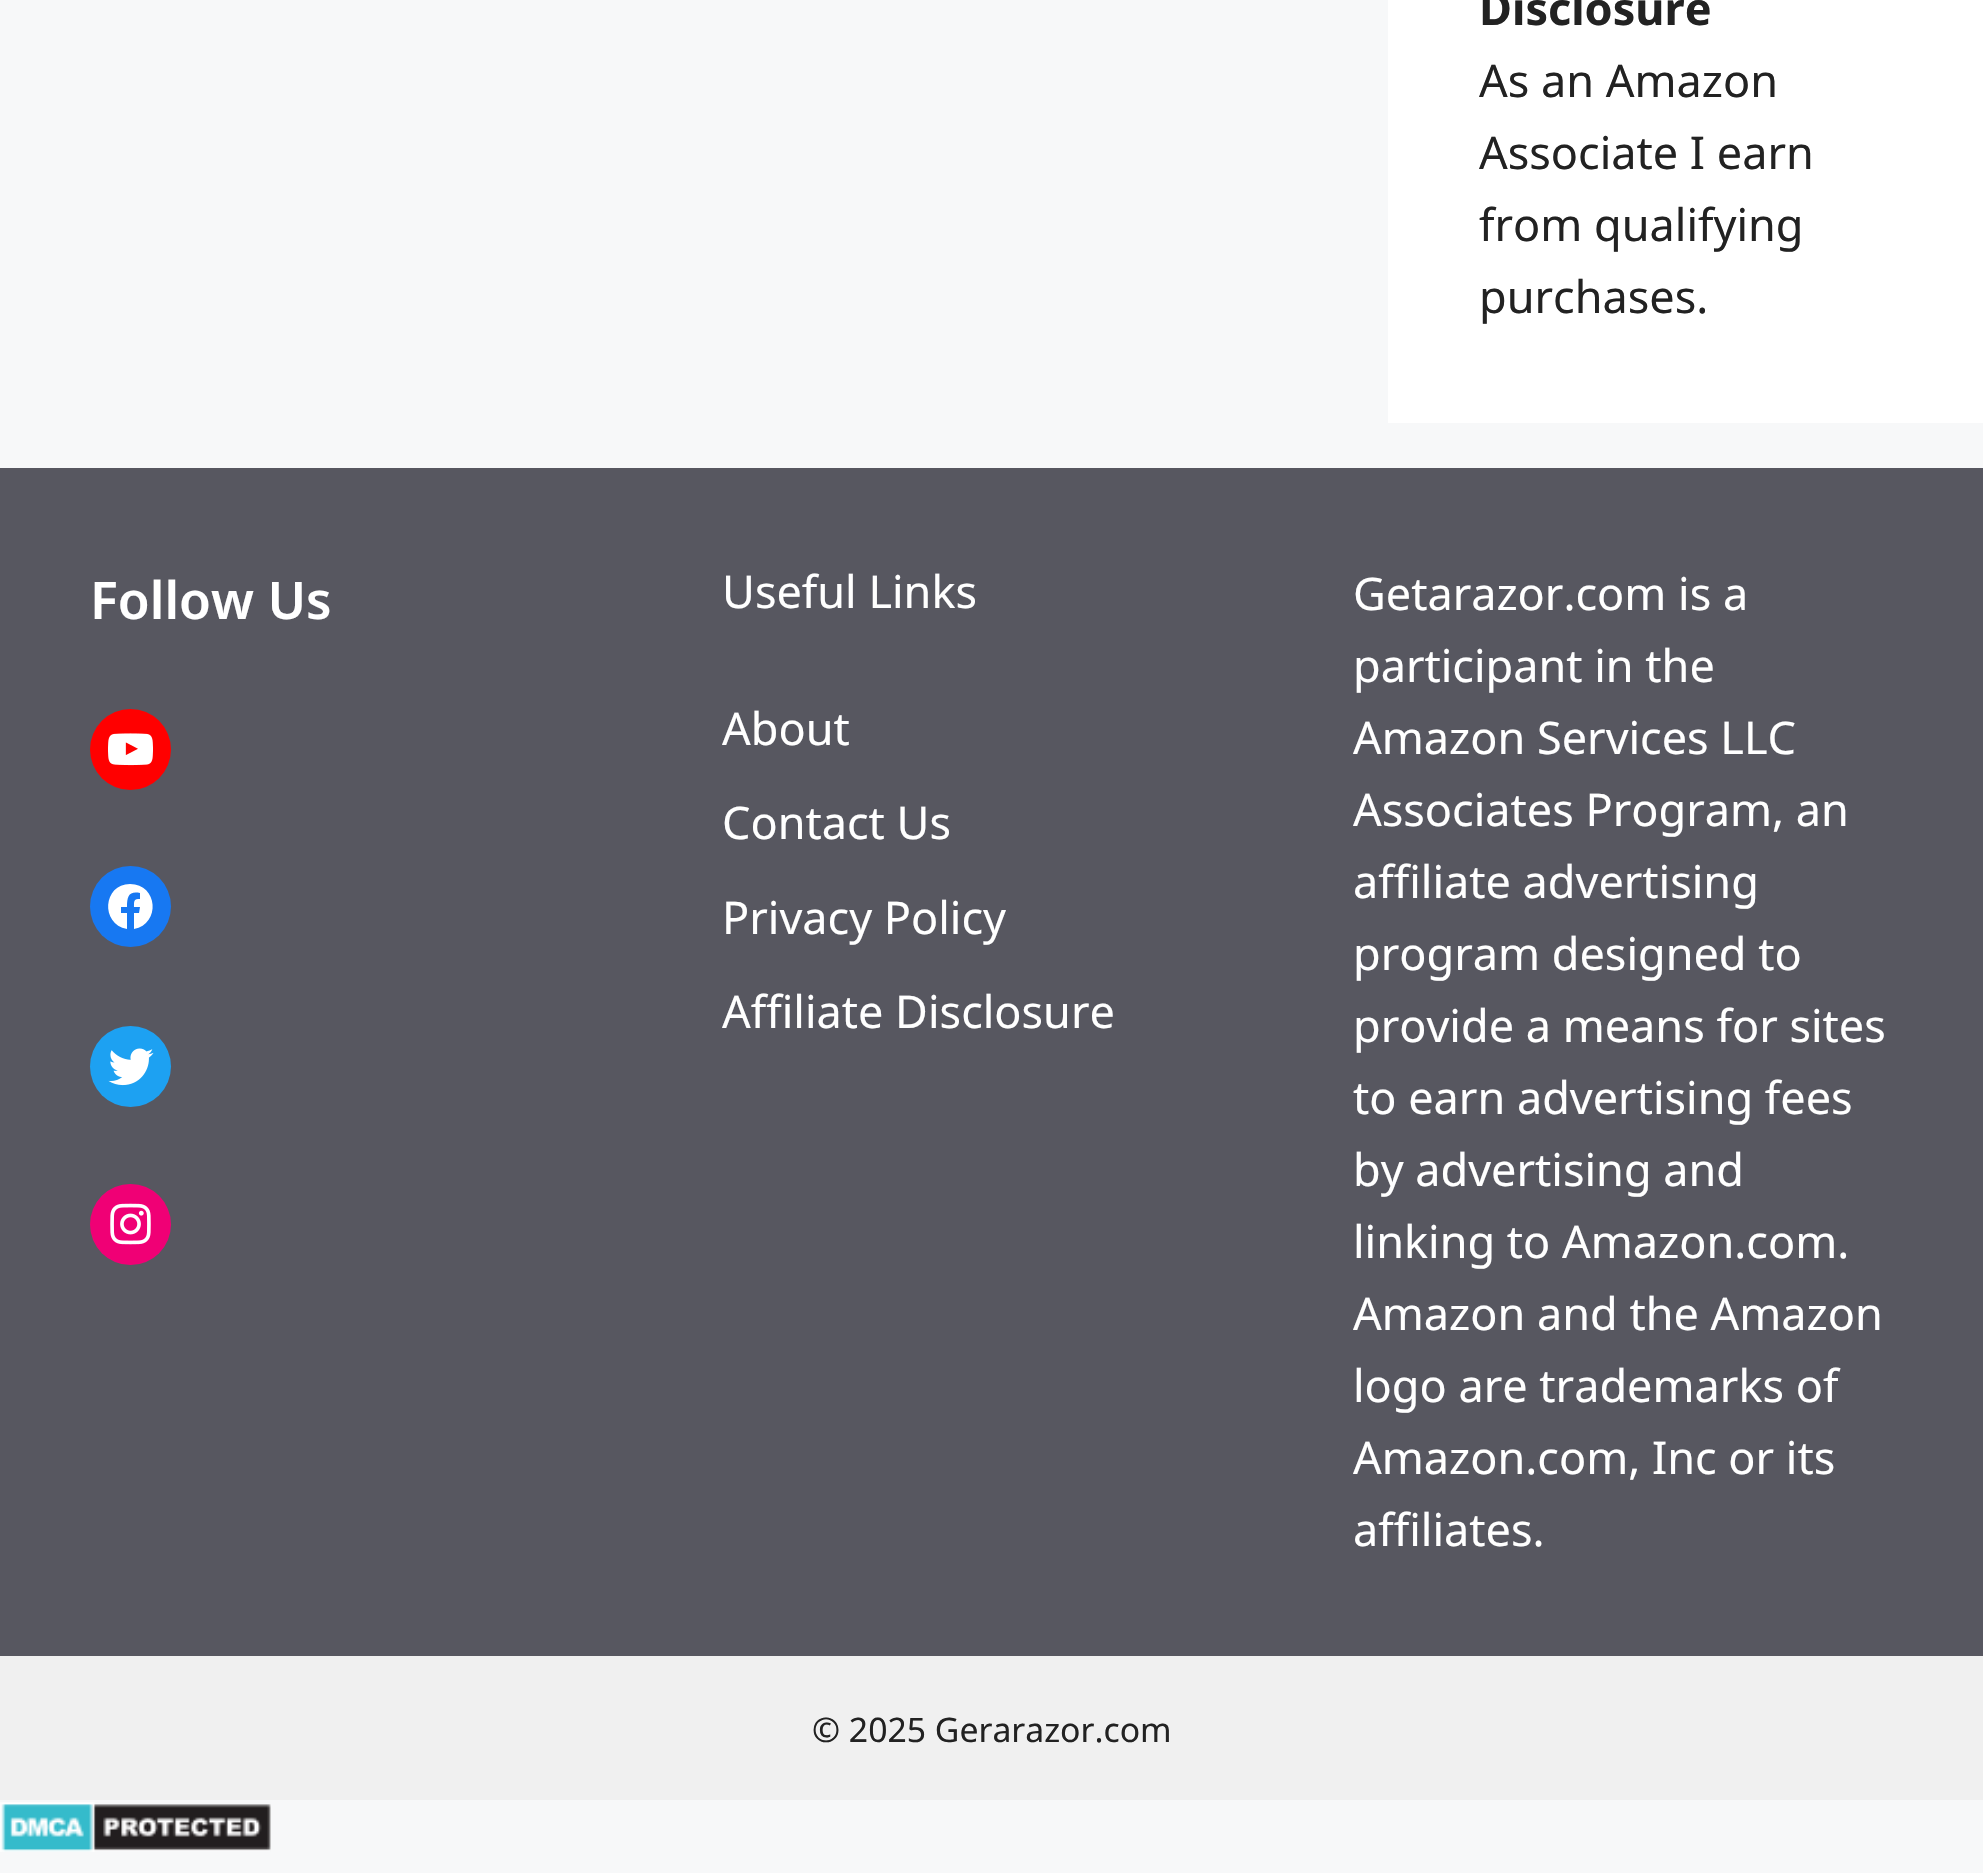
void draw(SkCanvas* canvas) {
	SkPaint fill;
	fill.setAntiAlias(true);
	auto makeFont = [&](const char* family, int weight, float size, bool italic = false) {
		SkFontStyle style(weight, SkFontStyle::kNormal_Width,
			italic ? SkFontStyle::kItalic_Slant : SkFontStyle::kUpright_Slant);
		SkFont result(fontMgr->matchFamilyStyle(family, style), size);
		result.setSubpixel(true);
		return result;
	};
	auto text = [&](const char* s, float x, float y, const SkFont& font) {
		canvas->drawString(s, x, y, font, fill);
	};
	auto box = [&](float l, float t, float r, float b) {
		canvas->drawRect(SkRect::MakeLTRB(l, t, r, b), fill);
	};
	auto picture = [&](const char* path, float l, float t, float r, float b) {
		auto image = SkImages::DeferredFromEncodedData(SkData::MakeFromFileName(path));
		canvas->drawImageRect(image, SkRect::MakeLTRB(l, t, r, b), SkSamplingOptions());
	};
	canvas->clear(0xFFF7F8F9);
	fill.setColor(0xFFFFFFFF);
	box(1388, 0, 1983, 423);
	fill.setColor(0xFF575760);
	box(0, 468, 1983, 1656);
	fill.setColor(0xFFFF0000);
	canvas->drawCircle(130.5f, 749.5f, 40.5f, fill);
	picture("image0.png", 108, 733, 153, 766);
	fill.setColor(0xFF1778F2);
	canvas->drawCircle(130.5f, 906.5f, 40.5f, fill);
	fill.setColor(0xFFFFFFFF);
	canvas->drawPath(SkPathBuilder().moveTo(130, 884).cubicTo(103, 884, 100, 924, 127, 929).lineTo(127, 913).lineTo(121, 913).lineTo(121, 907).lineTo(127, 907).cubicTo(127, 896, 129, 891, 140, 893).lineTo(140, 899).cubicTo(134, 899, 134, 900, 134, 907).lineTo(140, 907).lineTo(139, 913).lineTo(134, 913).lineTo(134, 929).cubicTo(161, 924, 158, 884, 130, 884).close().detach(), fill);
	fill.setColor(0xFF1DA1F2);
	canvas->drawCircle(130.5f, 1066.5f, 40.5f, fill);
	picture("image1.png", 108, 1048, 154, 1086);
	fill.setColor(0xFFF00075);
	canvas->drawCircle(130.5f, 1224.5f, 40.5f, fill);
	picture("image2.png", 110, 1203, 151, 1245);
	fill.setColor(0xFFF0F0F0);
	box(0, 1656, 1983, 1800);
	picture("image3.png", 0, 1802, 271, 1852);
	auto font1 = makeFont("Noto Sans", 700, 45);
	fill.setColor(0xFF222222);
	text("Disclosure", 1479, 25, font1);
	auto font2 = makeFont("Noto Sans", 400, 45);
	text("As an Amazon", 1479, 97, font2);
	text("Associate I earn", 1479, 169, font2);
	text("from qualifying", 1479, 241, font2);
	text("purchases.", 1479, 313, font2);
	auto font3 = makeFont("Noto Sans", 600, 51.75f);
	fill.setColor(0xFFFFFFFF);
	text("Follow Us", 90, 619, font3);
	text("Useful Links", 722, 608, font2);
	text("About", 722, 745, font2);
	text("Contact Us", 722, 839, font2);
	text("Privacy Policy", 722, 934, font2);
	text("Affiliate Disclosure", 722, 1028, font2);
	text("Getarazor.com is a", 1353, 610, font2);
	text("participant in the", 1353, 682, font2);
	text("Amazon Services LLC", 1353, 754, font2);
	text("Associates Program, an", 1353, 826, font2);
	text("affiliate advertising", 1353, 898, font2);
	text("program designed to", 1353, 970, font2);
	text("provide a means for sites", 1353, 1042, font2);
	text("to earn advertising fees", 1353, 1114, font2);
	text("by advertising and", 1353, 1186, font2);
	text("linking to Amazon.com.", 1353, 1258, font2);
	text("Amazon and the Amazon", 1353, 1330, font2);
	text("logo are trademarks of", 1353, 1402, font2);
	text("Amazon.com, Inc or its", 1353, 1474, font2);
	text("affiliates.", 1353, 1546, font2);
	auto font4 = makeFont("Noto Sans", 400, 33.75f);
	fill.setColor(0xFF222222);
	text("© 2025 Gerarazor.com", 812, 1742, font4);
}
